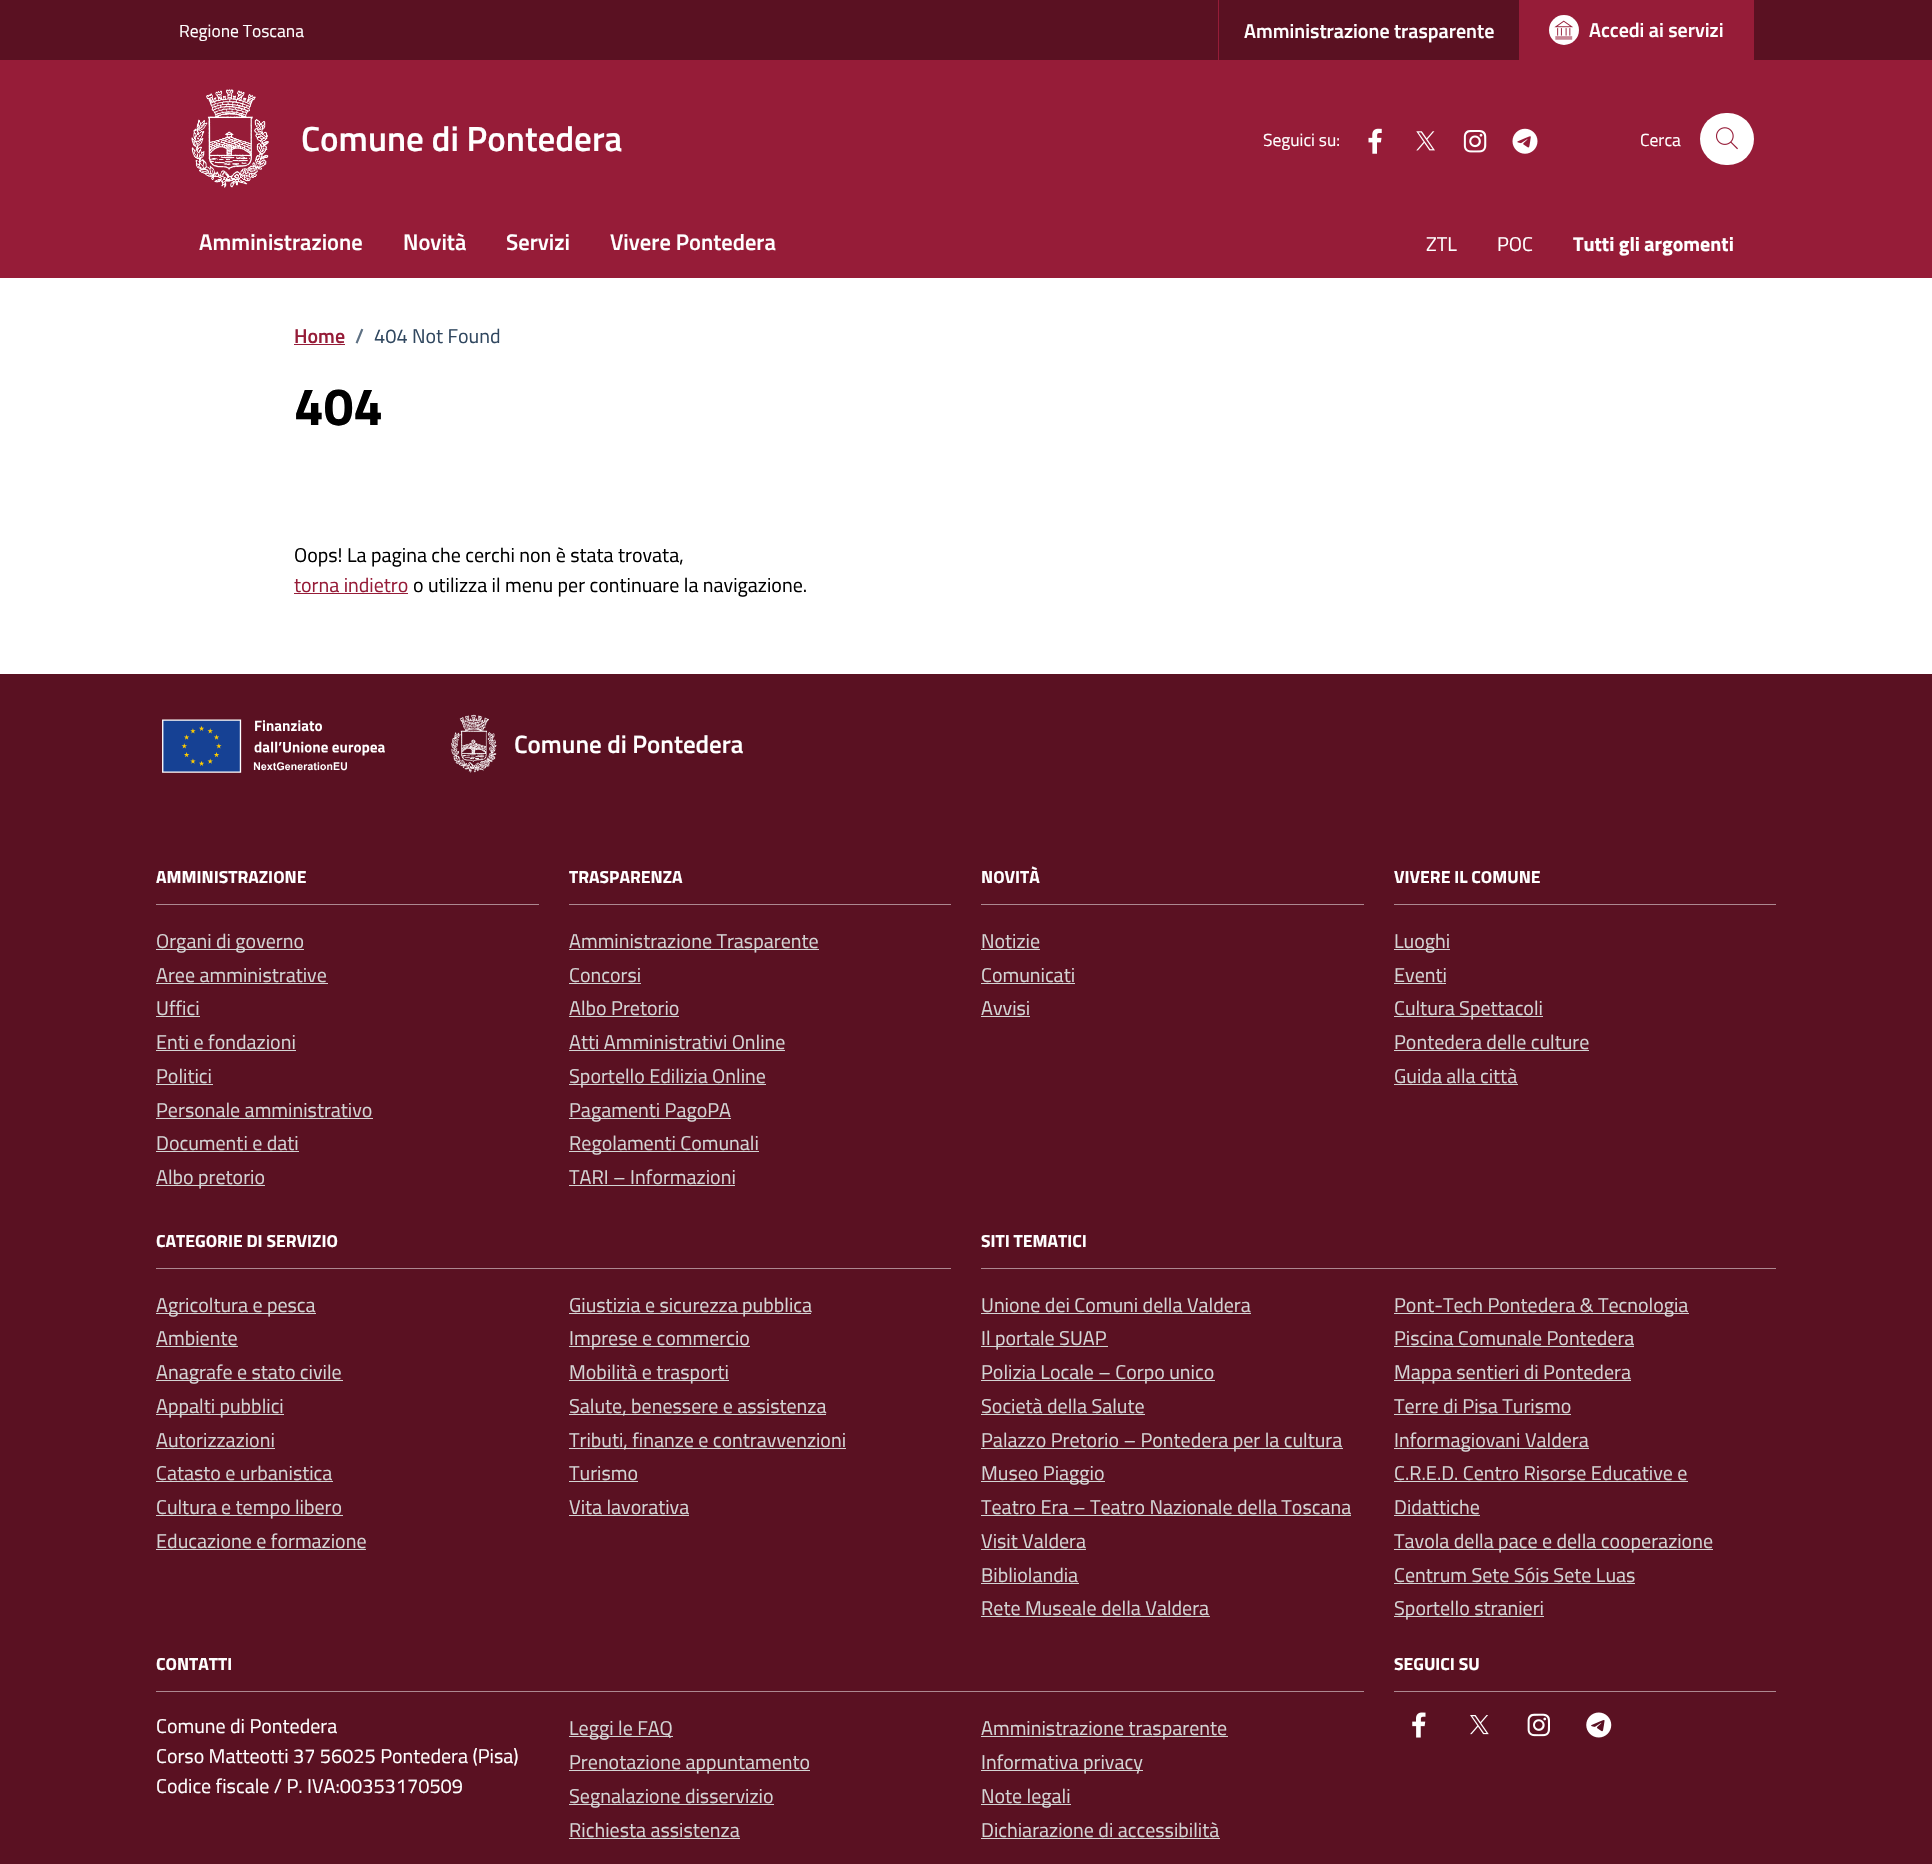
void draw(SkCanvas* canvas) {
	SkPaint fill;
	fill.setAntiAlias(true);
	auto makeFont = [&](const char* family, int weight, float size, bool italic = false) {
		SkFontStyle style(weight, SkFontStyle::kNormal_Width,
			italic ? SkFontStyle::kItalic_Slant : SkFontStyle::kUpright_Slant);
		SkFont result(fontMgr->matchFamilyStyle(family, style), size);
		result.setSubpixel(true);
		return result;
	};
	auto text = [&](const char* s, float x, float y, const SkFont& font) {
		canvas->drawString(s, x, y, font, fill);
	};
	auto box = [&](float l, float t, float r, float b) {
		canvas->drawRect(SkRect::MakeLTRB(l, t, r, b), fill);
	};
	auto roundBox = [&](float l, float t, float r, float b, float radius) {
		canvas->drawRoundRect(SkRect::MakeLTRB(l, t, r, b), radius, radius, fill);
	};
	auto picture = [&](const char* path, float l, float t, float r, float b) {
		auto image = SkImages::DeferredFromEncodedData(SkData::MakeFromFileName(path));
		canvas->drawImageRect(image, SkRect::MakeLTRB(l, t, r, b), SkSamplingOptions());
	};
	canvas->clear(0xFFFFFFFF);
	fill.setColor(0xFF5A1122);
	box(0, 0, 1932, 60);
	fill.setColor(0xFF961C38);
	box(1218, 0, 1219, 60);
	box(1519, 0, 1754, 60);
	fill.setColor(0xFFFFFFFF);
	canvas->drawCircle(1564, 30, 15, fill);
	picture("image0.png", 1554, 20, 1573, 40);
	fill.setColor(0xFF961C38);
	box(0, 60, 1932, 278);
	picture("image1.png", 191, 89, 269, 188);
	picture("image2.png", 1368, 128, 1382, 154);
	picture("image3.png", 1416, 131, 1435, 151);
	picture("image4.png", 1463, 130, 1487, 153);
	picture("image5.png", 1512, 128, 1538, 154);
	fill.setColor(0xFFFFFFFF);
	roundBox(1700, 113, 1754, 165, 26);
	picture("image6.png", 1716, 127, 1738, 150);
	fill.setColor(0xFF961C38);
	box(294, 344, 345, 345);
	box(294, 593, 408, 594);
	fill.setColor(0xFF5A1122);
	box(0, 674, 1932, 1864);
	picture("image7.png", 162, 719, 385, 773);
	picture("image8.png", 451, 714, 497, 773);
	fill.setColor(0xFFAD8891);
	box(156, 904, 539, 905);
	fill.setColor(0xFFD4D4D4);
	box(156, 949, 304, 950);
	box(156, 983, 328, 984);
	box(156, 1016, 200, 1017);
	box(156, 1050, 296, 1051);
	box(156, 1084, 213, 1085);
	box(156, 1118, 373, 1119);
	box(156, 1151, 299, 1152);
	box(156, 1185, 265, 1186);
	fill.setColor(0xFFAD8891);
	box(569, 904, 951, 905);
	fill.setColor(0xFFD4D4D4);
	box(569, 949, 819, 950);
	box(569, 983, 641, 984);
	box(569, 1016, 679, 1017);
	box(569, 1050, 785, 1051);
	box(569, 1084, 766, 1085);
	box(569, 1118, 731, 1119);
	box(569, 1151, 759, 1152);
	box(569, 1185, 735, 1186);
	fill.setColor(0xFFAD8891);
	box(981, 904, 1364, 905);
	fill.setColor(0xFFD4D4D4);
	box(981, 949, 1040, 950);
	box(981, 983, 1075, 984);
	box(981, 1016, 1030, 1017);
	fill.setColor(0xFFAD8891);
	box(1394, 904, 1776, 905);
	fill.setColor(0xFFD4D4D4);
	box(1394, 949, 1450, 950);
	box(1394, 983, 1446, 984);
	box(1394, 1016, 1543, 1017);
	box(1394, 1050, 1589, 1051);
	box(1394, 1084, 1518, 1085);
	fill.setColor(0xFFAD8891);
	box(156, 1268, 951, 1269);
	fill.setColor(0xFFD4D4D4);
	box(156, 1313, 316, 1314);
	box(156, 1346, 238, 1347);
	box(156, 1380, 343, 1381);
	box(156, 1414, 284, 1415);
	box(156, 1448, 275, 1449);
	box(156, 1481, 333, 1482);
	box(156, 1515, 343, 1516);
	box(156, 1549, 366, 1550);
	box(569, 1313, 811, 1314);
	box(569, 1346, 750, 1347);
	box(569, 1380, 729, 1381);
	box(569, 1414, 826, 1415);
	box(569, 1448, 846, 1449);
	box(569, 1481, 638, 1482);
	box(569, 1515, 689, 1516);
	fill.setColor(0xFFAD8891);
	box(981, 1268, 1776, 1269);
	fill.setColor(0xFFD4D4D4);
	box(981, 1313, 1251, 1314);
	box(981, 1346, 1108, 1347);
	box(981, 1380, 1215, 1381);
	box(981, 1414, 1145, 1415);
	box(981, 1448, 1343, 1449);
	box(981, 1481, 1105, 1482);
	box(981, 1515, 1351, 1516);
	box(981, 1549, 1086, 1550);
	box(981, 1583, 1079, 1584);
	box(981, 1616, 1210, 1617);
	box(1394, 1313, 1689, 1314);
	box(1394, 1346, 1634, 1347);
	box(1394, 1380, 1631, 1381);
	box(1394, 1414, 1571, 1415);
	box(1394, 1448, 1589, 1449);
	box(1394, 1481, 1688, 1482);
	box(1394, 1515, 1480, 1516);
	box(1394, 1549, 1713, 1550);
	box(1394, 1583, 1635, 1584);
	box(1394, 1616, 1544, 1617);
	fill.setColor(0xFFAD8891);
	box(156, 1691, 1364, 1692);
	fill.setColor(0xFFD4D4D4);
	box(569, 1736, 673, 1737);
	box(569, 1770, 810, 1771);
	box(569, 1804, 774, 1805);
	box(569, 1838, 740, 1839);
	box(981, 1736, 1228, 1737);
	box(981, 1770, 1143, 1771);
	box(981, 1804, 1071, 1805);
	box(981, 1838, 1220, 1839);
	fill.setColor(0xFFAD8891);
	box(1394, 1691, 1776, 1692);
	picture("image9.png", 1412, 1712, 1426, 1738);
	picture("image10.png", 1470, 1715, 1489, 1735);
	picture("image11.png", 1527, 1713, 1550, 1737);
	picture("image12.png", 1586, 1712, 1612, 1738);
	auto font1 = makeFont("Titillium Web", 400, 17.5f);
	fill.setColor(0xFFFFFFFF);
	text("Regione Toscana", 179, 37, font1);
	auto font2 = makeFont("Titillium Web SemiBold", 600, 20);
	text("Amministrazione trasparente", 1244, 38, font2);
	text("Accedi ai servizi", 1589, 37, font2);
	auto font3 = makeFont("Titillium Web SemiBold", 600, 35);
	text("Comune di Pontedera", 301, 151, font3);
	text("Seguici su:", 1263, 146, font1);
	text("Cerca", 1640, 146, font1);
	auto font4 = makeFont("Titillium Web SemiBold", 600, 22.5f);
	text("Amministrazione", 199, 250, font4);
	text("Novità", 403, 250, font4);
	text("Servizi", 506, 250, font4);
	text("Vivere Pontedera", 610, 250, font4);
	auto font5 = makeFont("Titillium Web", 400, 20);
	text("ZTL", 1426, 251, font5);
	text("POC", 1497, 251, font5);
	auto font6 = makeFont("Titillium Web", 700, 20);
	text("Tutti gli argomenti", 1573, 251, font6);
	fill.setColor(0xFF961C38);
	text("Home", 294, 343, font2);
	fill.setColor(0xFF5D7083);
	text("/", 355, 343, font2);
	fill.setColor(0xFF30475F);
	text("404 Not Found", 374, 343, font5);
	auto font7 = makeFont("Titillium Web", 700, 53);
	fill.setColor(0xFF000000);
	text("404", 294, 425, font7);
	text("Oops! La pagina che cerchi non è stata trovata,", 294, 562, font5);
	fill.setColor(0xFF961C38);
	text("torna indietro", 294, 592, font5);
	fill.setColor(0xFF000000);
	text("o utilizza il menu per continuare la navigazione.", 413, 592, font5);
	auto font8 = makeFont("Titillium Web SemiBold", 600, 25);
	fill.setColor(0xFFFFFFFF);
	text("Comune di Pontedera", 514, 753, font8);
	auto font9 = makeFont("Titillium Web", 700, 17.5f);
	text("AMMINISTRAZIONE", 156, 883, font9);
	fill.setColor(0xFFD4D4D4);
	text("Organi di governo", 156, 948, font5);
	text("Aree amministrative", 156, 982, font5);
	text("Uffici", 156, 1015, font5);
	text("Enti e fondazioni", 156, 1049, font5);
	text("Politici", 156, 1083, font5);
	text("Personale amministrativo", 156, 1117, font5);
	text("Documenti e dati", 156, 1150, font5);
	text("Albo pretorio", 156, 1184, font5);
	fill.setColor(0xFFFFFFFF);
	text("TRASPARENZA", 569, 883, font9);
	fill.setColor(0xFFD4D4D4);
	text("Amministrazione Trasparente", 569, 948, font5);
	text("Concorsi", 569, 982, font5);
	text("Albo Pretorio", 569, 1015, font5);
	text("Atti Amministrativi Online", 569, 1049, font5);
	text("Sportello Edilizia Online", 569, 1083, font5);
	text("Pagamenti PagoPA", 569, 1117, font5);
	text("Regolamenti Comunali", 569, 1150, font5);
	text("TARI – Informazioni", 569, 1184, font5);
	fill.setColor(0xFFFFFFFF);
	text("NOVITÀ", 981, 883, font9);
	fill.setColor(0xFFD4D4D4);
	text("Notizie", 981, 948, font5);
	text("Comunicati", 981, 982, font5);
	text("Avvisi", 981, 1015, font5);
	fill.setColor(0xFFFFFFFF);
	text("VIVERE IL COMUNE", 1394, 883, font9);
	fill.setColor(0xFFD4D4D4);
	text("Luoghi", 1394, 948, font5);
	text("Eventi", 1394, 982, font5);
	text("Cultura Spettacoli", 1394, 1015, font5);
	text("Pontedera delle culture", 1394, 1049, font5);
	text("Guida alla città", 1394, 1083, font5);
	fill.setColor(0xFFFFFFFF);
	text("CATEGORIE DI SERVIZIO", 156, 1247, font9);
	fill.setColor(0xFFD4D4D4);
	text("Agricoltura e pesca", 156, 1312, font5);
	text("Ambiente", 156, 1345, font5);
	text("Anagrafe e stato civile", 156, 1379, font5);
	text("Appalti pubblici", 156, 1413, font5);
	text("Autorizzazioni", 156, 1447, font5);
	text("Catasto e urbanistica", 156, 1480, font5);
	text("Cultura e tempo libero", 156, 1514, font5);
	text("Educazione e formazione", 156, 1548, font5);
	text("Giustizia e sicurezza pubblica", 569, 1312, font5);
	text("Imprese e commercio", 569, 1345, font5);
	text("Mobilità e trasporti", 569, 1379, font5);
	text("Salute, benessere e assistenza", 569, 1413, font5);
	text("Tributi, finanze e contravvenzioni", 569, 1447, font5);
	text("Turismo", 569, 1480, font5);
	text("Vita lavorativa", 569, 1514, font5);
	fill.setColor(0xFFFFFFFF);
	text("SITI TEMATICI", 981, 1247, font9);
	fill.setColor(0xFFD4D4D4);
	text("Unione dei Comuni della Valdera", 981, 1312, font5);
	text("Il portale SUAP", 981, 1345, font5);
	text("Polizia Locale – Corpo unico", 981, 1379, font5);
	text("Società della Salute", 981, 1413, font5);
	text("Palazzo Pretorio – Pontedera per la cultura", 981, 1447, font5);
	text("Museo Piaggio", 981, 1480, font5);
	text("Teatro Era – Teatro Nazionale della Toscana", 981, 1514, font5);
	text("Visit Valdera", 981, 1548, font5);
	text("Bibliolandia", 981, 1582, font5);
	text("Rete Museale della Valdera", 981, 1615, font5);
	text("Pont-Tech Pontedera & Tecnologia", 1394, 1312, font5);
	text("Piscina Comunale Pontedera", 1394, 1345, font5);
	text("Mappa sentieri di Pontedera", 1394, 1379, font5);
	text("Terre di Pisa Turismo", 1394, 1413, font5);
	text("Informagiovani Valdera", 1394, 1447, font5);
	text("C.R.E.D. Centro Risorse Educative e", 1394, 1480, font5);
	text("Didattiche", 1394, 1514, font5);
	text("Tavola della pace e della cooperazione", 1394, 1548, font5);
	text("Centrum Sete Sóis Sete Luas", 1394, 1582, font5);
	text("Sportello stranieri", 1394, 1615, font5);
	fill.setColor(0xFFFFFFFF);
	text("CONTATTI", 156, 1670, font9);
	text("Comune di Pontedera", 156, 1733, font5);
	text("Corso Matteotti 37 56025 Pontedera (Pisa)", 156, 1763, font5);
	text("Codice fiscale / P. IVA:00353170509", 156, 1793, font5);
	fill.setColor(0xFFD4D4D4);
	text("Leggi le FAQ", 569, 1735, font5);
	text("Prenotazione appuntamento", 569, 1769, font5);
	text("Segnalazione disservizio", 569, 1803, font5);
	text("Richiesta assistenza", 569, 1837, font5);
	text("Amministrazione trasparente", 981, 1735, font5);
	text("Informativa privacy", 981, 1769, font5);
	text("Note legali", 981, 1803, font5);
	text("Dichiarazione di accessibilità", 981, 1837, font5);
	fill.setColor(0xFFFFFFFF);
	text("SEGUICI SU", 1394, 1670, font9);
}
